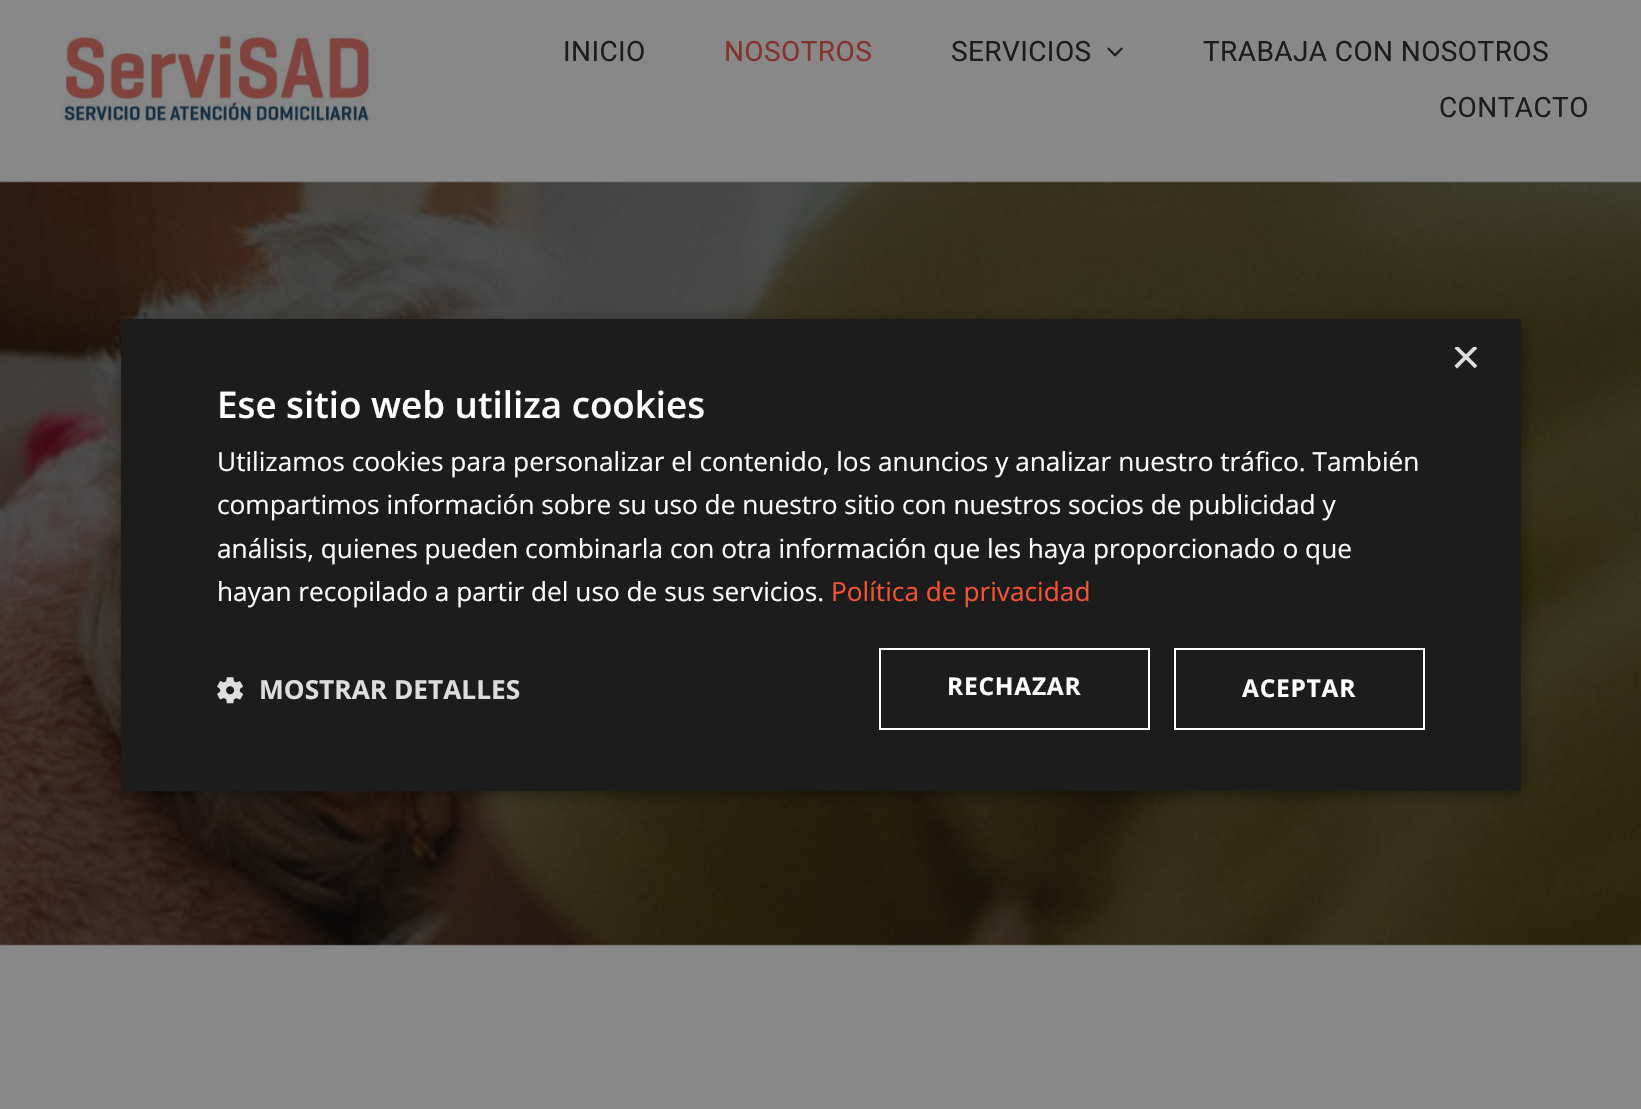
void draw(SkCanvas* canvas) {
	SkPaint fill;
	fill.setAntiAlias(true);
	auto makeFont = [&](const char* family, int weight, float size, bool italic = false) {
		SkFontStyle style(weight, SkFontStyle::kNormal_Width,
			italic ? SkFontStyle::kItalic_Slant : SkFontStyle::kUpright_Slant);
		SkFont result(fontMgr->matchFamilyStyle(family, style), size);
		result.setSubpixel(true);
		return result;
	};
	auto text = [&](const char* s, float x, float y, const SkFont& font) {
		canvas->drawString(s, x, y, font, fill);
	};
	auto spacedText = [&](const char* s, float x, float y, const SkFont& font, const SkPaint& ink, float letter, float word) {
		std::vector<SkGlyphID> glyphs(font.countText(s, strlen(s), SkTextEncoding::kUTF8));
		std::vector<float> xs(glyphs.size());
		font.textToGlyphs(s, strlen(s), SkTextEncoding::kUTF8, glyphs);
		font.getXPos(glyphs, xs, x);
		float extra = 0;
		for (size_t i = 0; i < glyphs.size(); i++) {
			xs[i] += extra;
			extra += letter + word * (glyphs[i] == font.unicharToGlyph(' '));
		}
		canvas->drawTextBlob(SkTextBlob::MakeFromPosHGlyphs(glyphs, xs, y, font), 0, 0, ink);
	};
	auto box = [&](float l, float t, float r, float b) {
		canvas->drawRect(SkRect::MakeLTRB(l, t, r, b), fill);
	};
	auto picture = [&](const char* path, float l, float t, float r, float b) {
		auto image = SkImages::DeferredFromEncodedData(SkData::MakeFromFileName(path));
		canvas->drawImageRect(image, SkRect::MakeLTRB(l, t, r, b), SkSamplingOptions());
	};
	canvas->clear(0xFF888888);
	picture("image0.png", 59, 27, 377, 123);
	picture("image1.png", 1107, 47, 1123, 57);
	picture("image2.png", 0, 181, 1641, 946);
	fill.setColor(0x59000000);
	fill.setMaskFilter(SkMaskFilter::MakeBlur(kNormal_SkBlurStyle, 7));
	canvas->drawRect(SkRect::MakeLTRB(123, 322, 1523, 795), fill);
	fill.setMaskFilter(nullptr);
	fill.setColor(0xFF1C1C1C);
	box(121, 319, 1521, 791);
	picture("image3.png", 217, 677, 243, 704);
	fill.setStyle(SkPaint::kStroke_Style);
	fill.setStrokeWidth(2);
	fill.setColor(0xFFFFFFFF);
	canvas->drawRect(SkRect::MakeLTRB(880, 649, 1149, 729), fill);
	canvas->drawRect(SkRect::MakeLTRB(1175, 649, 1424, 729), fill);
	auto font1 = makeFont("Roboto", 400, 28);
	fill.setStyle(SkPaint::kFill_Style);
	fill.setColor(0xFF1D1D1D);
	spacedText("INICIO", 563, 61, font1, fill, 0.4f, 0);
	fill.setColor(0xFF85332D);
	spacedText("NOSOTROS", 724, 61, font1, fill, 0.4f, 0);
	fill.setColor(0xFF1D1D1D);
	spacedText("SERVICIOS", 951, 61, font1, fill, 0.4f, 0);
	spacedText("TRABAJA CON NOSOTROS", 1203, 61, font1, fill, 0.4f, 0);
	spacedText("CONTACTO", 1439, 117, font1, fill, 0.4f, 0);
	canvas->save();
	canvas->clipRect(SkRect::MakeLTRB(1451, 347, 1477, 373));
	auto font2 = makeFont("Liberation Sans", 400, 51);
	fill.setColor(0xFFDDDDDD);
	text("×", 1451, 374, font2);
	canvas->restore();
	auto font3 = makeFont("Open Sans", 600, 36.75f);
	fill.setColor(0xFFFFFFFF);
	text("Ese sitio web utiliza cookies", 217, 418, font3);
	auto font4 = makeFont("Open Sans", 400, 26.25f);
	text("Utilizamos cookies para personalizar el contenido, los anuncios y analizar nuestro tráfico. También", 217, 471, font4);
	text("compartimos información sobre su uso de nuestro sitio con nuestros socios de publicidad y", 217, 514, font4);
	text("análisis, quienes pueden combinarla con otra información que les haya proporcionado o que", 217, 558, font4);
	text("hayan recopilado a partir del uso de sus servicios.", 217, 601, font4);
	fill.setColor(0xFFF85333);
	text("Política de privacidad", 831, 601, font4);
	auto font5 = makeFont("Open Sans", 700, 26.25f);
	fill.setColor(0xFFDDDDDD);
	text("MOSTRAR DETALLES", 259, 699, font5);
	auto font6 = makeFont("Open Sans", 700, 24.5f);
	fill.setColor(0xFFFFFFFF);
	spacedText("RECHAZAR", 947, 695, font6, fill, 0.75f, 0);
	spacedText("ACEPTAR", 1242, 697, font6, fill, 0.75f, 0);
}
